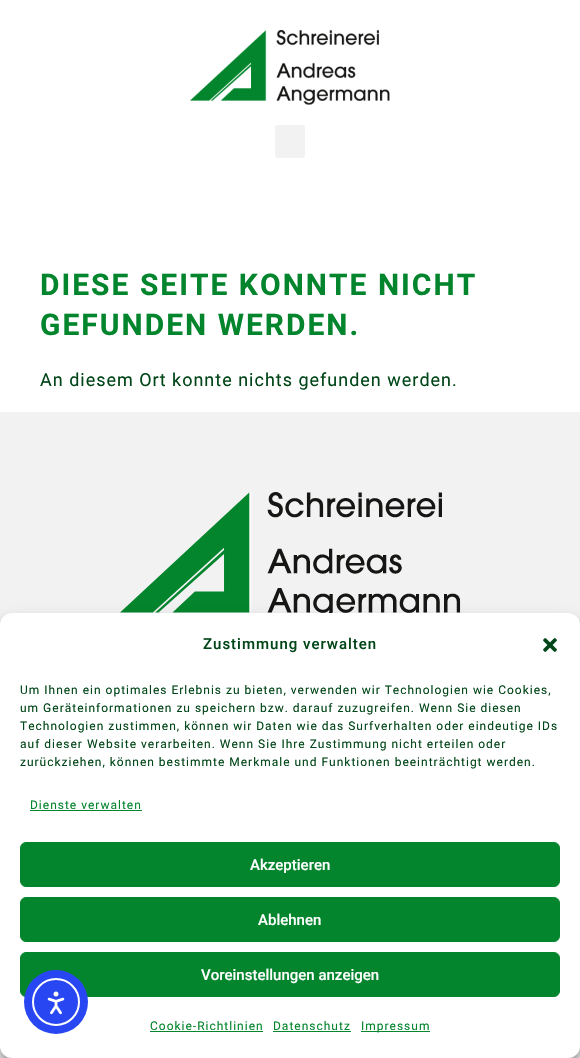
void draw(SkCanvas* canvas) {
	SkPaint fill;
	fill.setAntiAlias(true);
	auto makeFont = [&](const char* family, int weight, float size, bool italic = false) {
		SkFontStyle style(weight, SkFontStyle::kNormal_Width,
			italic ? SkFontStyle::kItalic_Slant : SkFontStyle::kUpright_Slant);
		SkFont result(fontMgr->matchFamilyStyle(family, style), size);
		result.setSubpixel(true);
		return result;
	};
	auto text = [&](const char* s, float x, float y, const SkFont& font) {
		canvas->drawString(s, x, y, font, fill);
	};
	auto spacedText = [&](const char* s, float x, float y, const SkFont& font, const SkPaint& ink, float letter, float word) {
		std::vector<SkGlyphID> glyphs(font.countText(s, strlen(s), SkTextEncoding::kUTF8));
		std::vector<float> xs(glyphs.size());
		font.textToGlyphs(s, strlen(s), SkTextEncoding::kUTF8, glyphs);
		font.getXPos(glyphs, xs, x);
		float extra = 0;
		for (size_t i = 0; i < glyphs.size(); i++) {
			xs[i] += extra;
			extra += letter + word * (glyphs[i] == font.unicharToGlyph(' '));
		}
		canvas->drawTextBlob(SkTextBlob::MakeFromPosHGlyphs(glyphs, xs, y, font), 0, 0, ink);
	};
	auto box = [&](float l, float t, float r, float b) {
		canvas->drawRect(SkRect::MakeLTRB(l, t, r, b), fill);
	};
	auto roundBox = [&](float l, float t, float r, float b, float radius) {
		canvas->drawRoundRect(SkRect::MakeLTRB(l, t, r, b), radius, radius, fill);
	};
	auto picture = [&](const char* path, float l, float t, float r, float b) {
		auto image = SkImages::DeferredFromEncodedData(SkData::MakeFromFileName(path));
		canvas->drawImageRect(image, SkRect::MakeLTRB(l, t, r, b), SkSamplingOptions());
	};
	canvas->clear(0xFFFFFFFF);
	picture("image0.png", 190, 30, 390, 105);
	fill.setColor(0xFFF2F2F2);
	roundBox(275, 125, 305, 158, 3);
	box(0, 412, 580, 625);
	picture("image1.png", 120, 492, 461, 613);
	box(0, 1046, 580, 1058);
	fill.setColor(0x3B000000);
	fill.setMaskFilter(SkMaskFilter::MakeBlur(kNormal_SkBlurStyle, 3));
	canvas->drawRoundRect(SkRect::MakeLTRB(0, 619, 580, 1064), 12, 12, fill);
	fill.setMaskFilter(nullptr);
	fill.setColor(0x30000000);
	fill.setMaskFilter(SkMaskFilter::MakeBlur(kNormal_SkBlurStyle, 10));
	canvas->drawRoundRect(SkRect::MakeLTRB(0, 623, 580, 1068), 12, 12, fill);
	fill.setMaskFilter(nullptr);
	fill.setColor(0xFFFFFFFF);
	roundBox(0, 613, 580, 1058, 12);
	picture("image2.png", 543, 638, 557, 652);
	fill.setColor(0xFF03852D);
	box(30, 810, 142, 811);
	canvas->drawRoundRect(SkRect::MakeLTRB(20.5f, 842.5f, 559.5f, 886.5f), 5.5f, 5.5f, fill);
	fill.setStyle(SkPaint::kStroke_Style);
	fill.setStrokeWidth(1);
	canvas->drawRoundRect(SkRect::MakeLTRB(20.5f, 842.5f, 559.5f, 886.5f), 5.5f, 5.5f, fill);
	fill.setStyle(SkPaint::kFill_Style);
	canvas->drawRoundRect(SkRect::MakeLTRB(20.5f, 897.5f, 559.5f, 941.5f), 5.5f, 5.5f, fill);
	fill.setStyle(SkPaint::kStroke_Style);
	canvas->drawRoundRect(SkRect::MakeLTRB(20.5f, 897.5f, 559.5f, 941.5f), 5.5f, 5.5f, fill);
	fill.setStyle(SkPaint::kFill_Style);
	canvas->drawRoundRect(SkRect::MakeLTRB(20.5f, 952.5f, 559.5f, 996.5f), 5.5f, 5.5f, fill);
	fill.setStyle(SkPaint::kStroke_Style);
	canvas->drawRoundRect(SkRect::MakeLTRB(20.5f, 952.5f, 559.5f, 996.5f), 5.5f, 5.5f, fill);
	fill.setStyle(SkPaint::kFill_Style);
	box(150, 1031, 263, 1032);
	box(273, 1031, 351, 1032);
	box(361, 1031, 430, 1032);
	fill.setColor(0xFF2847F3);
	canvas->drawCircle(56, 1002, 32, fill);
	fill.setStyle(SkPaint::kStroke_Style);
	fill.setStrokeWidth(2);
	fill.setColor(0xFFFFFFFF);
	canvas->drawCircle(56, 1002, 23, fill);
	picture("image3.png", 47, 991, 65, 1015);
	auto font1 = makeFont("Roboto", 700, 30);
	fill.setStyle(SkPaint::kFill_Style);
	fill.setColor(0xFF03852D);
	spacedText("DIESE SEITE KONNTE NICHT", 40, 295, font1, fill, 2, 0);
	spacedText("GEFUNDEN WERDEN.", 40, 335, font1, fill, 2, 0);
	auto font2 = makeFont("Roboto", 400, 18);
	fill.setColor(0xFF014618);
	spacedText("An diesem Ort konnte nichts gefunden werden.", 40, 386, font2, fill, 1, 0);
	auto font3 = makeFont("Roboto", 500, 15);
	spacedText("Zustimmung verwalten", 203, 649, font3, fill, 1, 0);
	auto font4 = makeFont("Roboto", 400, 12);
	spacedText("Um Ihnen ein optimales Erlebnis zu bieten, verwenden wir Technologien wie Cookies,", 20, 694, font4, fill, 1, 0);
	spacedText("um Geräteinformationen zu speichern bzw. darauf zuzugreifen. Wenn Sie diesen", 20, 712, font4, fill, 1, 0);
	spacedText("Technologien zustimmen, können wir Daten wie das Surfverhalten oder eindeutige IDs", 20, 730, font4, fill, 1, 0);
	spacedText("auf dieser Website verarbeiten. Wenn Sie Ihre Zustimmung nicht erteilen oder", 20, 748, font4, fill, 1, 0);
	spacedText("zurückziehen, können bestimmte Merkmale und Funktionen beeinträchtigt werden.", 20, 766, font4, fill, 1, 0);
	fill.setColor(0xFF03852D);
	spacedText("Dienste verwalten", 30, 809, font4, fill, 1, 0);
	fill.setColor(0xFFFFFFFF);
	text("Akzeptieren", 250, 870, font3);
	text("Ablehnen", 258, 925, font3);
	text("Voreinstellungen anzeigen", 201, 980, font3);
	fill.setColor(0xFF03852D);
	spacedText("Cookie-Richtlinien", 150, 1030, font4, fill, 1, 0);
	spacedText("Datenschutz", 273, 1030, font4, fill, 1, 0);
	spacedText("Impressum", 361, 1030, font4, fill, 1, 0);
}
